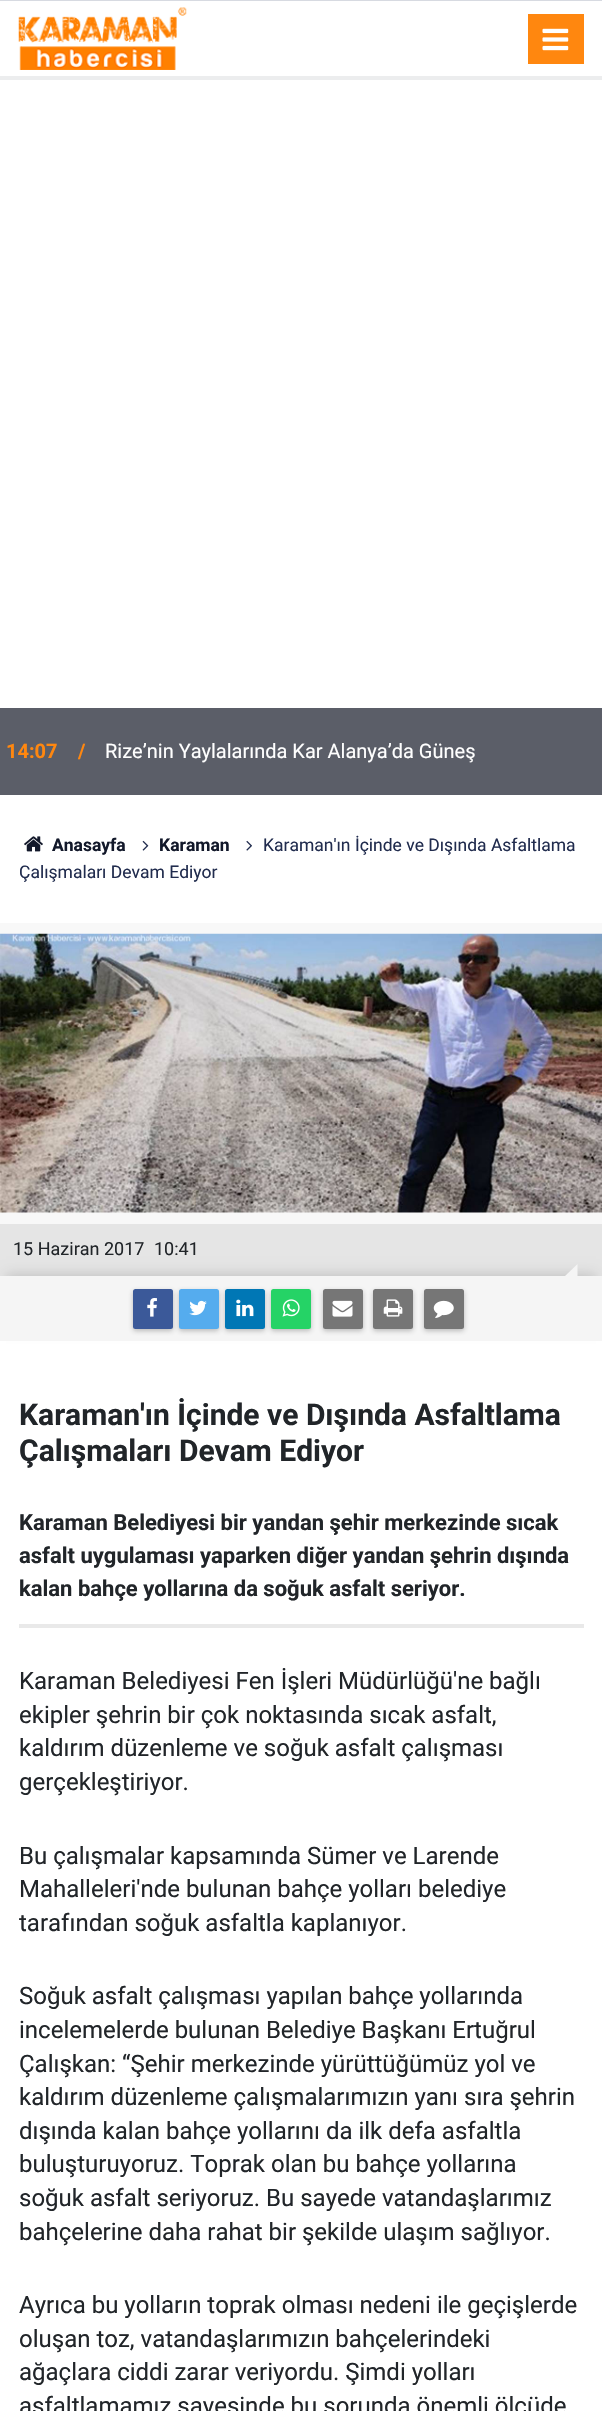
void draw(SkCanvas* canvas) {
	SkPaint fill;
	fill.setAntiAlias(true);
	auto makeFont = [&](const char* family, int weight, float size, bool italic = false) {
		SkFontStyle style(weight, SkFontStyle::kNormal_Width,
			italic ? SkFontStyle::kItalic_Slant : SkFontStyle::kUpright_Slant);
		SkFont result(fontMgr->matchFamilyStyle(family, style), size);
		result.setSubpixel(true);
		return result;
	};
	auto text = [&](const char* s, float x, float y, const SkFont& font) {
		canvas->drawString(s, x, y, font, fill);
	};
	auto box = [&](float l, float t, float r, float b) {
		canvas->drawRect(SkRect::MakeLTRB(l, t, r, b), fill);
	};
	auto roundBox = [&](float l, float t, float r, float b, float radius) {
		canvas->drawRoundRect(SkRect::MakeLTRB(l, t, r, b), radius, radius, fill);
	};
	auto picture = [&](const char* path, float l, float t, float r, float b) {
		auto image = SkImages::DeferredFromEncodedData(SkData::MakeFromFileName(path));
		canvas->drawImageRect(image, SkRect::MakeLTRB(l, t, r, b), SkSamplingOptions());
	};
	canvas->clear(0xFFFFFFFF);
	fill.setColor(0xFFD7DAE1);
	box(0, 0, 602, 1);
	fill.setColor(0xFFECEDEE);
	box(0, 76, 602, 80);
	picture("image0.png", 18, 7, 187, 70);
	fill.setColor(0xFFFF870F);
	box(528, 14, 584, 64);
	picture("image1.png", 542, 28, 569, 51);
	fill.setColor(0xFF5B5E68);
	box(0, 708, 602, 795);
	picture("image2.png", 24, 836, 43, 852);
	picture("image3.png", 142, 840, 149, 851);
	picture("image4.png", 246, 840, 252, 851);
	fill.setColor(0xFFF8F8F8);
	box(0, 923, 602, 1224);
	picture("image5.png", 0, 933, 602, 1213);
	fill.setColor(0xFFE5E5E5);
	box(0, 1224, 602, 1276);
	fill.setColor(0x26000000);
	fill.setMaskFilter(SkMaskFilter::MakeBlur(kNormal_SkBlurStyle, 6));
	canvas->drawRect(SkRect::MakeLTRB(6, 1274, 596, 1326), fill);
	fill.setMaskFilter(nullptr);
	fill.setColor(0xFFF5F5F5);
	box(0, 1276, 602, 1341);
	canvas->drawPath(SkPathBuilder().moveTo(577.5f, 1276).lineTo(565, 1276).lineTo(577.5f, 1264).close().detach(), fill);
	fill.setColor(0x4D323232);
	fill.setMaskFilter(SkMaskFilter::MakeBlur(kNormal_SkBlurStyle, 2.5f));
	canvas->drawRoundRect(SkRect::MakeLTRB(133, 1291, 173, 1331), 2.5f, 2.5f, fill);
	fill.setMaskFilter(nullptr);
	fill.setColor(0xFF3B5999);
	roundBox(133, 1289, 173, 1329, 2.5f);
	picture("image6.png", 147, 1298, 157, 1317);
	fill.setColor(0x4D323232);
	fill.setMaskFilter(SkMaskFilter::MakeBlur(kNormal_SkBlurStyle, 2.5f));
	canvas->drawRoundRect(SkRect::MakeLTRB(179, 1291, 219, 1331), 2.5f, 2.5f, fill);
	fill.setMaskFilter(nullptr);
	fill.setColor(0xFF55ACEE);
	roundBox(179, 1289, 219, 1329, 2.5f);
	picture("image7.png", 189, 1300, 207, 1316);
	fill.setColor(0x4D323232);
	fill.setMaskFilter(SkMaskFilter::MakeBlur(kNormal_SkBlurStyle, 2.5f));
	canvas->drawRoundRect(SkRect::MakeLTRB(225, 1291, 265, 1331), 2.5f, 2.5f, fill);
	fill.setMaskFilter(nullptr);
	fill.setColor(0xFF0077B5);
	roundBox(225, 1289, 265, 1329, 2.5f);
	picture("image8.png", 236, 1299, 254, 1317);
	fill.setColor(0x4D323232);
	fill.setMaskFilter(SkMaskFilter::MakeBlur(kNormal_SkBlurStyle, 2.5f));
	canvas->drawRoundRect(SkRect::MakeLTRB(271, 1291, 311, 1331), 2.5f, 2.5f, fill);
	fill.setMaskFilter(nullptr);
	fill.setColor(0xFF25D366);
	roundBox(271, 1289, 311, 1329, 2.5f);
	picture("image9.png", 282, 1299, 300, 1317);
	fill.setColor(0x4D323232);
	fill.setMaskFilter(SkMaskFilter::MakeBlur(kNormal_SkBlurStyle, 2.5f));
	canvas->drawRoundRect(SkRect::MakeLTRB(323, 1291, 363, 1331), 2.5f, 2.5f, fill);
	fill.setMaskFilter(nullptr);
	fill.setColor(0xFF767676);
	roundBox(323, 1289, 363, 1329, 2.5f);
	picture("image10.png", 332, 1300, 353, 1317);
	fill.setColor(0x4D323232);
	fill.setMaskFilter(SkMaskFilter::MakeBlur(kNormal_SkBlurStyle, 2.5f));
	canvas->drawRoundRect(SkRect::MakeLTRB(373, 1291, 413, 1331), 2.5f, 2.5f, fill);
	fill.setMaskFilter(nullptr);
	fill.setColor(0xFF767676);
	roundBox(373, 1289, 413, 1329, 2.5f);
	picture("image11.png", 383, 1299, 403, 1317);
	fill.setColor(0x4D323232);
	fill.setMaskFilter(SkMaskFilter::MakeBlur(kNormal_SkBlurStyle, 2.5f));
	canvas->drawRoundRect(SkRect::MakeLTRB(424, 1291, 464, 1331), 2.5f, 2.5f, fill);
	fill.setMaskFilter(nullptr);
	fill.setColor(0xFF767676);
	roundBox(424, 1289, 464, 1329, 2.5f);
	picture("image12.png", 433, 1300, 454, 1318);
	fill.setColor(0xFFE9E9E9);
	box(19, 1624, 584, 1628);
	auto font1 = makeFont("Roboto", 700, 20);
	fill.setColor(0xFFFF870F);
	text("14:07", 6, 758, font1);
	text("/", 78, 758, font1);
	auto font2 = makeFont("Roboto", 400, 20);
	fill.setColor(0xFFFFFFFF);
	text("Rize’nin Yaylalarında Kar Alanya’da Güneş", 105, 758, font2);
	auto font3 = makeFont("Roboto", 700, 17.5f);
	fill.setColor(0xFF12182A);
	text("Anasayfa", 52, 851, font3);
	text("Karaman", 159, 851, font3);
	auto font4 = makeFont("Roboto", 400, 17.5f);
	fill.setColor(0xFF212C4E);
	text("Karaman'ın İçinde ve Dışında Asfaltlama", 263, 851, font4);
	text("Çalışmaları Devam Ediyor", 19, 878, font4);
	auto font5 = makeFont("Roboto", 400, 18);
	fill.setColor(0xFF212529);
	text("15 Haziran 2017", 13, 1255, font5);
	text("10:41", 154, 1255, font5);
	auto font6 = makeFont("Roboto", 700, 30);
	text("Karaman'ın İçinde ve Dışında Asfaltlama", 19, 1425, font6);
	text("Çalışmaları Devam Ediyor", 19, 1461, font6);
	auto font7 = makeFont("Roboto", 700, 22);
	text("Karaman Belediyesi bir yandan şehir merkezinde sıcak", 19, 1530, font7);
	text("asfalt uygulaması yaparken diğer yandan şehrin dışında", 19, 1563, font7);
	text("kalan bahçe yollarına da soğuk asfalt seriyor.", 19, 1596, font7);
	auto font8 = makeFont("Roboto", 400, 24);
	text("Karaman Belediyesi Fen İşleri Müdürlüğü'ne bağlı", 19, 1689, font8);
	text("ekipler şehrin bir çok noktasında sıcak asfalt,", 19, 1723, font8);
	text("kaldırım düzenleme ve soğuk asfalt çalışması", 19, 1756, font8);
	text("gerçekleştiriyor.", 19, 1790, font8);
	text("Bu çalışmalar kapsamında Sümer ve Larende", 19, 1864, font8);
	text("Mahalleleri'nde bulunan bahçe yolları belediye", 19, 1897, font8);
	text("tarafından soğuk asfaltla kaplanıyor.", 19, 1931, font8);
	text("Soğuk asfalt çalışması yapılan bahçe yollarında", 19, 2004, font8);
	text("incelemelerde bulunan Belediye Başkanı Ertuğrul", 19, 2038, font8);
	text("Çalışkan: “Şehir merkezinde yürüttüğümüz yol ve", 19, 2072, font8);
	text("kaldırım düzenleme çalışmalarımızın yanı sıra şehrin", 19, 2105, font8);
	text("dışında kalan bahçe yollarını da ilk defa asfaltla", 19, 2139, font8);
	text("buluşturuyoruz. Toprak olan bu bahçe yollarına", 19, 2172, font8);
	text("soğuk asfalt seriyoruz. Bu sayede vatandaşlarımız", 19, 2206, font8);
	text("bahçelerine daha rahat bir şekilde ulaşım sağlıyor.", 19, 2240, font8);
	text("Ayrıca bu yolların toprak olması nedeni ile geçişlerde", 19, 2313, font8);
	text("oluşan toz, vatandaşlarımızın bahçelerindeki", 19, 2347, font8);
	text("ağaçlara ciddi zarar veriyordu. Şimdi yolları", 19, 2380, font8);
	text("asfaltlamamız sayesinde bu sorunda önemli ölçüde", 19, 2414, font8);
}
